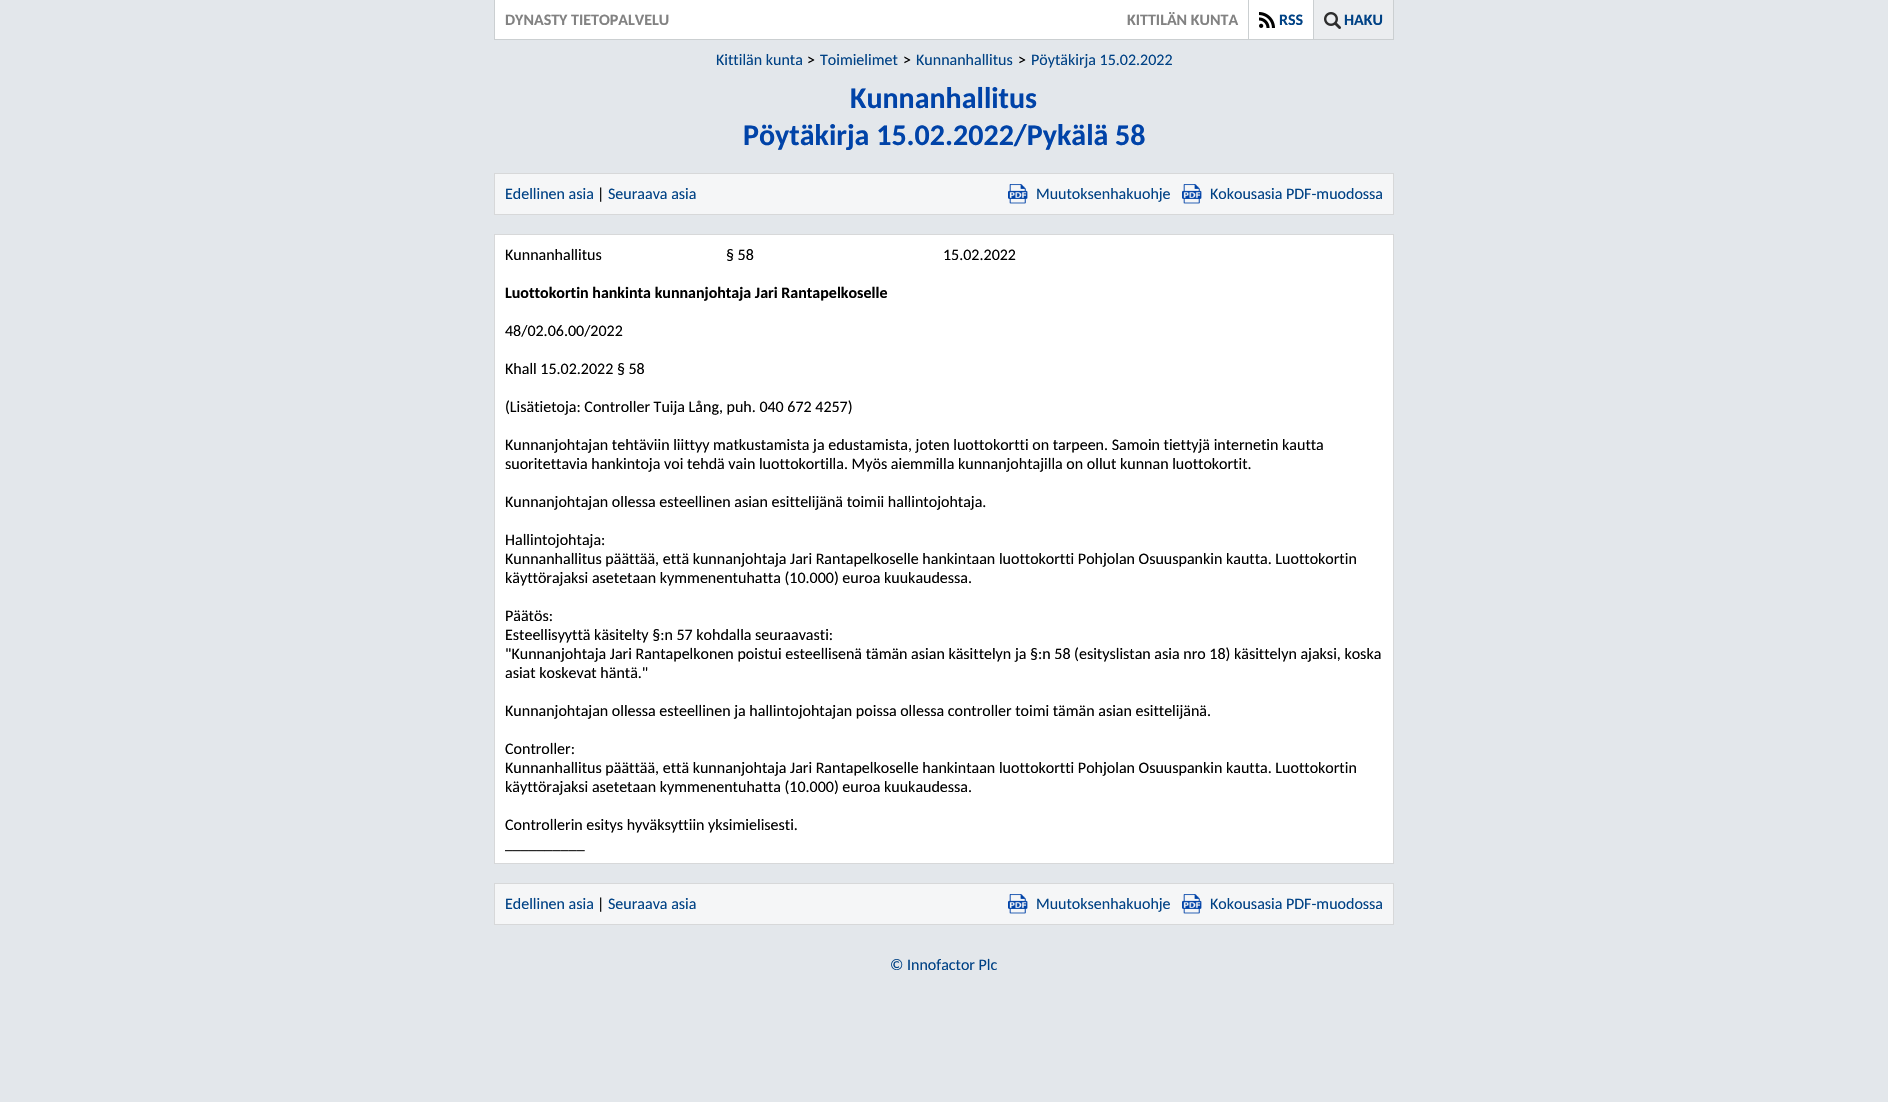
void draw(SkCanvas* canvas) {
	SkPaint fill;
	fill.setAntiAlias(true);
	auto makeFont = [&](const char* family, int weight, float size, bool italic = false) {
		SkFontStyle style(weight, SkFontStyle::kNormal_Width,
			italic ? SkFontStyle::kItalic_Slant : SkFontStyle::kUpright_Slant);
		SkFont result(fontMgr->matchFamilyStyle(family, style), size);
		result.setSubpixel(true);
		return result;
	};
	auto text = [&](const char* s, float x, float y, const SkFont& font) {
		canvas->drawString(s, x, y, font, fill);
	};
	auto box = [&](float l, float t, float r, float b) {
		canvas->drawRect(SkRect::MakeLTRB(l, t, r, b), fill);
	};
	auto picture = [&](const char* path, float l, float t, float r, float b) {
		auto image = SkImages::DeferredFromEncodedData(SkData::MakeFromFileName(path));
		canvas->drawImageRect(image, SkRect::MakeLTRB(l, t, r, b), SkSamplingOptions());
	};
	canvas->clear(0xFFE3E7EB);
	fill.setColor(0xFFFFFFFF);
	box(495, 0, 1313, 39);
	fill.setColor(0xFFCBCFD1);
	box(1393, 0, 1394, 40);
	box(494, 39, 1394, 40);
	box(494, 0, 495, 40);
	picture("image0.png", 1259, 12, 1275, 28);
	box(1248, 0, 1249, 39);
	fill.setColor(0xFFEBEDEF);
	box(1314, 0, 1393, 39);
	picture("image1.png", 1324, 12, 1341, 29);
	fill.setColor(0xFFCBCFD1);
	box(1313, 0, 1314, 39);
	fill.setStyle(SkPaint::kStroke_Style);
	fill.setStrokeWidth(1);
	fill.setColor(0xFFD7D8D9);
	canvas->drawRect(SkRect::MakeLTRB(494.5f, 173.5f, 1393.5f, 214.5f), fill);
	fill.setStyle(SkPaint::kFill_Style);
	fill.setColor(0xFFF5F6F7);
	box(495, 174, 1393, 214);
	picture("image2.png", 1008, 184, 1028, 204);
	picture("image3.png", 1182, 184, 1202, 204);
	fill.setColor(0xFFFFFFFF);
	canvas->drawRect(SkRect::MakeLTRB(494.5f, 234.5f, 1393.5f, 863.5f), fill);
	fill.setStyle(SkPaint::kStroke_Style);
	fill.setColor(0xFFD7D8D9);
	canvas->drawRect(SkRect::MakeLTRB(494.5f, 234.5f, 1393.5f, 863.5f), fill);
	canvas->drawRect(SkRect::MakeLTRB(494.5f, 883.5f, 1393.5f, 924.5f), fill);
	fill.setStyle(SkPaint::kFill_Style);
	fill.setColor(0xFFF5F6F7);
	box(495, 884, 1393, 924);
	picture("image2.png", 1008, 894, 1028, 914);
	picture("image3.png", 1182, 894, 1202, 914);
	auto font1 = makeFont("Carlito", 700, 16);
	fill.setColor(0xFF828282);
	text("DYNASTY TIETOPALVELU", 505, 25, font1);
	text("KITTILÄN KUNTA", 1127, 25, font1);
	fill.setColor(0xFF004285);
	text("RSS", 1279, 25, font1);
	text("HAKU", 1344, 25, font1);
	auto font2 = makeFont("Carlito", 400, 16);
	text("Kittilän kunta", 716, 65, font2);
	fill.setColor(0xFF000000);
	text(">", 807, 65, font2);
	fill.setColor(0xFF004285);
	text("Toimielimet", 820, 65, font2);
	fill.setColor(0xFF000000);
	text(">", 903, 65, font2);
	fill.setColor(0xFF004285);
	text("Kunnanhallitus", 916, 65, font2);
	fill.setColor(0xFF000000);
	text(">", 1018, 65, font2);
	fill.setColor(0xFF004285);
	text("Pöytäkirja 15.02.2022", 1031, 65, font2);
	auto font3 = makeFont("Carlito", 700, 30);
	fill.setColor(0xFF0043A8);
	text("Kunnanhallitus", 850, 108, font3);
	text("Pöytäkirja 15.02.2022/Pykälä 58", 743, 145, font3);
	fill.setColor(0xFF004285);
	text("Edellinen asia", 505, 199, font2);
	fill.setColor(0xFF000000);
	text("|", 597, 199, font2);
	fill.setColor(0xFF004285);
	text("Seuraava asia", 608, 199, font2);
	text("Muutoksenhakuohje", 1036, 199, font2);
	text("Kokousasia PDF-muodossa", 1210, 199, font2);
	fill.setColor(0xFF000000);
	text("Kunnanhallitus", 505, 260, font2);
	text("§ 58", 726, 260, font2);
	text("15.02.2022", 943, 260, font2);
	text("Luottokortin hankinta kunnanjohtaja Jari Rantapelkoselle", 505, 298, font1);
	text("48/02.06.00/2022", 505, 336, font2);
	text("Khall 15.02.2022 § 58", 505, 374, font2);
	text("(Lisätietoja: Controller Tuija Lång, puh. 040 672 4257)", 505, 412, font2);
	text("Kunnanjohtajan tehtäviin liittyy matkustamista ja edustamista, joten luottokortti on tarpeen. Samoin tiettyjä internetin kautta", 505, 450, font2);
	text("suoritettavia hankintoja voi tehdä vain luottokortilla. Myös aiemmilla kunnanjohtajilla on ollut kunnan luottokortit.", 505, 469, font2);
	text("Kunnanjohtajan ollessa esteellinen asian esittelijänä toimii hallintojohtaja.", 505, 507, font2);
	text("Hallintojohtaja:", 505, 545, font2);
	text("Kunnanhallitus päättää, että kunnanjohtaja Jari Rantapelkoselle hankintaan luottokortti Pohjolan Osuuspankin kautta. Luottokortin", 505, 564, font2);
	text("käyttörajaksi asetetaan kymmenentuhatta (10.000) euroa kuukaudessa.", 505, 583, font2);
	text("Päätös:", 505, 621, font2);
	text("Esteellisyyttä käsitelty §:n 57 kohdalla seuraavasti:", 505, 640, font2);
	text("\"Kunnanjohtaja Jari Rantapelkonen poistui esteellisenä tämän asian käsittelyn ja §:n 58 (esityslistan asia nro 18) käsittelyn ajaksi, koska", 505, 659, font2);
	text("asiat koskevat häntä.\"", 505, 678, font2);
	text("Kunnanjohtajan ollessa esteellinen ja hallintojohtajan poissa ollessa controller toimi tämän asian esittelijänä.", 505, 716, font2);
	text("Controller:", 505, 754, font2);
	text("Kunnanhallitus päättää, että kunnanjohtaja Jari Rantapelkoselle hankintaan luottokortti Pohjolan Osuuspankin kautta. Luottokortin", 505, 773, font2);
	text("käyttörajaksi asetetaan kymmenentuhatta (10.000) euroa kuukaudessa.", 505, 792, font2);
	text("Controllerin esitys hyväksyttiin yksimielisesti.", 505, 830, font2);
	text("__________", 505, 849, font2);
	fill.setColor(0xFF004285);
	text("Edellinen asia", 505, 909, font2);
	fill.setColor(0xFF000000);
	text("|", 597, 909, font2);
	fill.setColor(0xFF004285);
	text("Seuraava asia", 608, 909, font2);
	text("Muutoksenhakuohje", 1036, 909, font2);
	text("Kokousasia PDF-muodossa", 1210, 909, font2);
	text("© Innofactor Plc", 890, 970, font2);
}
